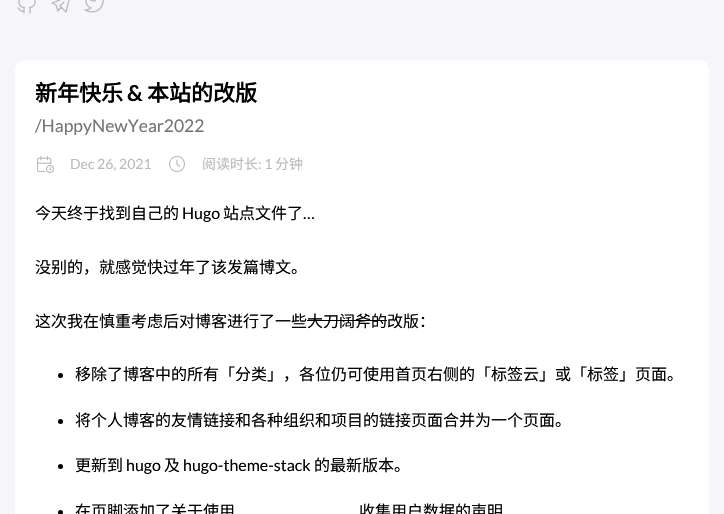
void draw(SkCanvas* canvas) {
	SkPaint fill;
	fill.setAntiAlias(true);
	auto makeFont = [&](const char* family, int weight, float size, bool italic = false) {
		SkFontStyle style(weight, SkFontStyle::kNormal_Width,
			italic ? SkFontStyle::kItalic_Slant : SkFontStyle::kUpright_Slant);
		SkFont result(fontMgr->matchFamilyStyle(family, style), size);
		result.setSubpixel(true);
		return result;
	};
	auto text = [&](const char* s, float x, float y, const SkFont& font) {
		canvas->drawString(s, x, y, font, fill);
	};
	auto box = [&](float l, float t, float r, float b) {
		canvas->drawRect(SkRect::MakeLTRB(l, t, r, b), fill);
	};
	auto roundBox = [&](float l, float t, float r, float b, float radius) {
		canvas->drawRoundRect(SkRect::MakeLTRB(l, t, r, b), radius, radius, fill);
	};
	auto picture = [&](const char* path, float l, float t, float r, float b) {
		auto image = SkImages::DeferredFromEncodedData(SkData::MakeFromFileName(path));
		canvas->drawImageRect(image, SkRect::MakeLTRB(l, t, r, b), SkSamplingOptions());
	};
	canvas->clear(0xFFF5F5FA);
	picture("image0.png", 17, 0, 36, 14);
	fill.setStyle(SkPaint::kStroke_Style);
	fill.setStrokeWidth(1.3f);
	fill.setStrokeCap(SkPaint::kRound_Cap);
	fill.setStrokeJoin(SkPaint::kRound_Join);
	fill.setColor(0xFFBABABA);
	canvas->drawPath(SkPathBuilder().moveTo(64, 2).lineTo(60, 6).lineTo(66, 12).lineTo(70, -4).lineTo(52, 3).lineTo(56, 5).lineTo(58, 11).lineTo(61, 7).detach(), fill);
	picture("image1.png", 84, 0, 104, 13);
	fill.setStyle(SkPaint::kFill_Style);
	fill.setColor(0xFFFFFFFF);
	roundBox(15, 60, 709, 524, 10);
	picture("image2.png", 36, 156, 54, 173);
	fill.setStyle(SkPaint::kStroke_Style);
	fill.setStrokeWidth(1.1f);
	fill.setStrokeCap(SkPaint::kButt_Cap);
	fill.setStrokeJoin(SkPaint::kMiter_Join);
	fill.setColor(0xFFBABABA);
	canvas->drawCircle(177, 164, 7.5f, fill);
	fill.setStrokeCap(SkPaint::kRound_Cap);
	fill.setStrokeJoin(SkPaint::kRound_Join);
	canvas->drawPath(SkPathBuilder().moveTo(177, 160).lineTo(177, 164).lineTo(179.5f, 166.5f).detach(), fill);
	fill.setStyle(SkPaint::kFill_Style);
	fill.setColor(0xFF000000);
	box(307, 320, 387, 321);
	canvas->drawCircle(60.5f, 375.5f, 2.5f, fill);
	canvas->drawCircle(60.5f, 421.5f, 2.5f, fill);
	canvas->drawCircle(60.5f, 466.5f, 2.5f, fill);
	canvas->drawCircle(60.5f, 512.5f, 2.5f, fill);
	auto font1 = makeFont("Noto Sans CJK SC", 700, 22);
	text("新年快乐", 35, 101, font1);
	auto font2 = makeFont("Lato", 700, 22);
	text("&", 127, 101, font2);
	text("本站的改版", 147, 101, font1);
	auto font3 = makeFont("Lato", 400, 17.5f);
	fill.setColor(0xFF747474);
	text("/HappyNewYear2022", 35, 132, font3);
	auto font4 = makeFont("Lato", 400, 14);
	fill.setColor(0xFFBABABA);
	text("Dec 26, 2021", 70, 169, font4);
	auto font5 = makeFont("Noto Sans CJK SC", 400, 14);
	text("阅读时长", 202, 169, font5);
	text(": 1", 258, 169, font4);
	text("分钟", 275, 169, font5);
	auto font6 = makeFont("Noto Sans CJK SC", 400, 16);
	fill.setColor(0xFF000000);
	text("今天终于找到自己的", 35, 219, font6);
	auto font7 = makeFont("Lato", 400, 16);
	text("Hugo", 182, 219, font7);
	text("站点文件了", 223, 219, font6);
	text("…", 303, 219, font7);
	text("没别的，就感觉快过年了该发篇博文。", 35, 273, font6);
	text("这次我在慎重考虑后对博客进行了一些大刀阔斧的改版：", 35, 327, font6);
	text("移除了博客中的所有「分类」，各位仍可使用首页右侧的「标签云」或「标签」页面。", 75, 380, font6);
	text("将个人博客的友情链接和各种组织和项目的链接页面合并为一个页面。", 75, 426, font6);
	text("更新到", 75, 471, font6);
	text("hugo", 126, 471, font7);
	text("及", 164, 471, font6);
	text("hugo-theme-stack", 183, 471, font7);
	text("的最新版本。", 314, 471, font6);
	text("在页脚添加了关于使用", 75, 517, font6);
	text("收集用户数据的声明", 359, 517, font6);
}
